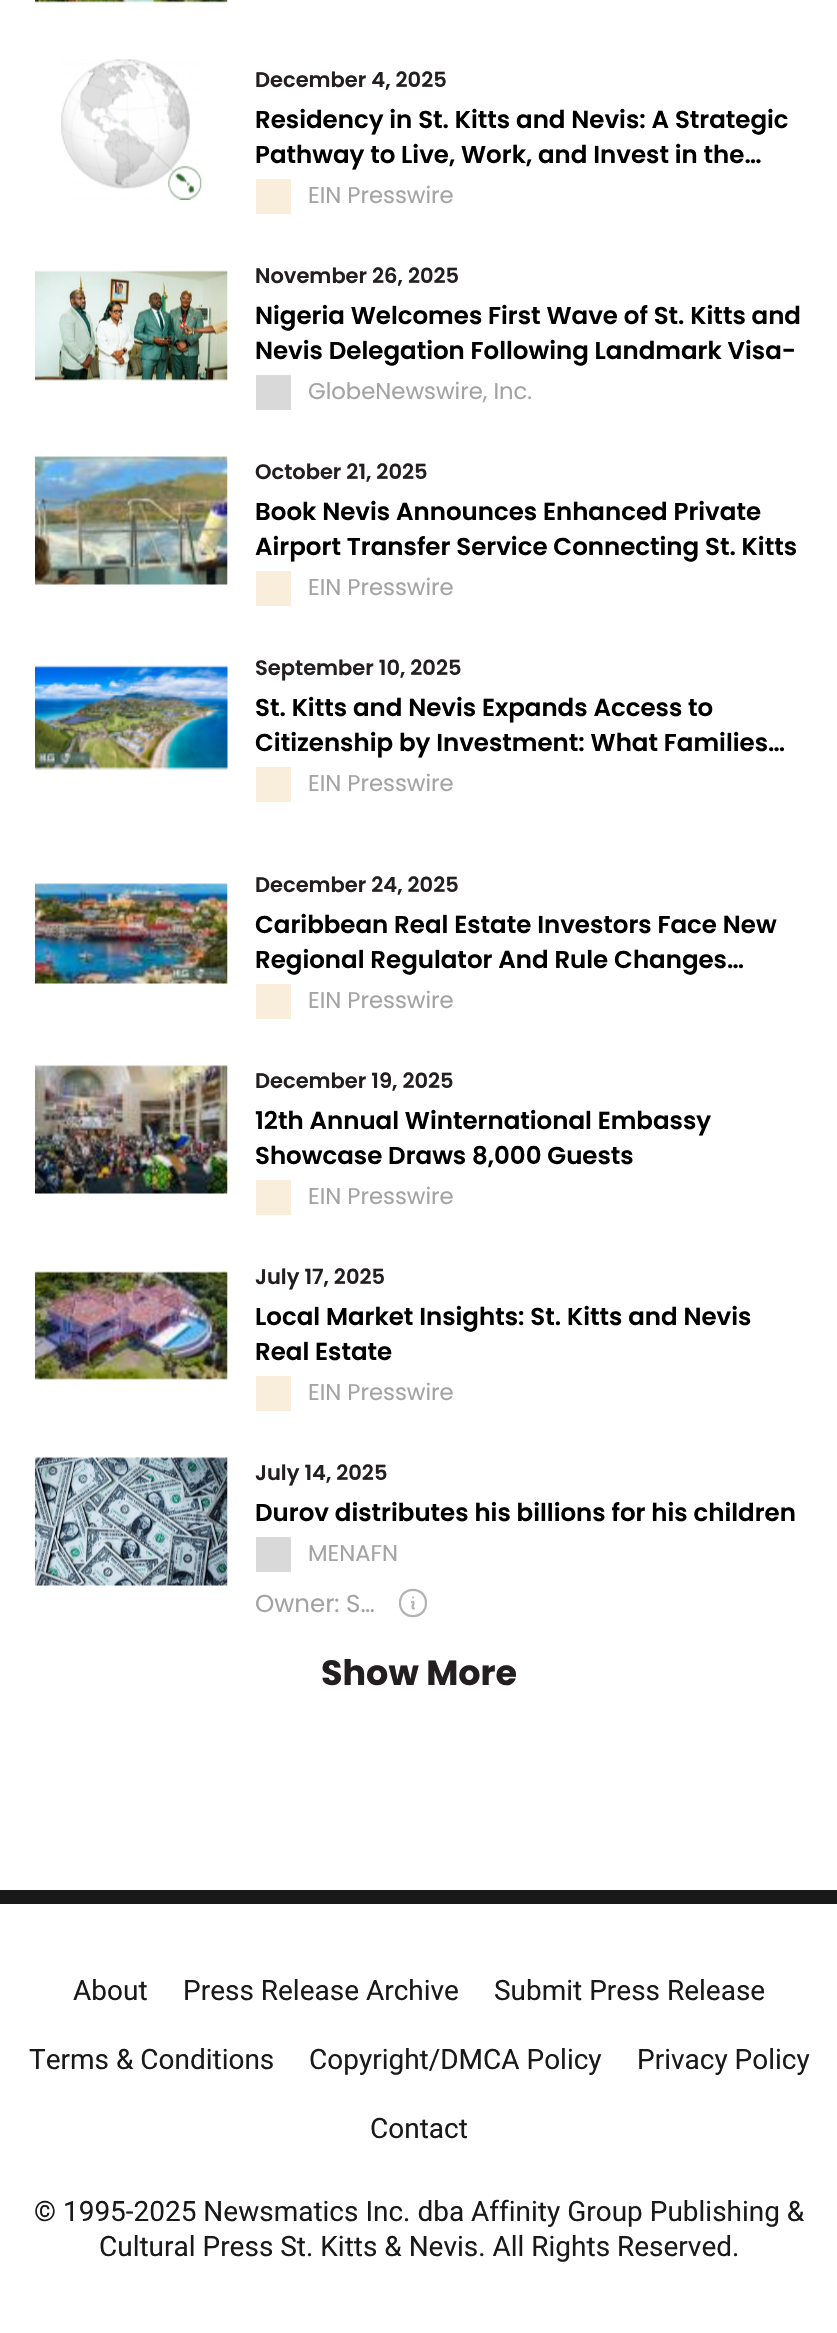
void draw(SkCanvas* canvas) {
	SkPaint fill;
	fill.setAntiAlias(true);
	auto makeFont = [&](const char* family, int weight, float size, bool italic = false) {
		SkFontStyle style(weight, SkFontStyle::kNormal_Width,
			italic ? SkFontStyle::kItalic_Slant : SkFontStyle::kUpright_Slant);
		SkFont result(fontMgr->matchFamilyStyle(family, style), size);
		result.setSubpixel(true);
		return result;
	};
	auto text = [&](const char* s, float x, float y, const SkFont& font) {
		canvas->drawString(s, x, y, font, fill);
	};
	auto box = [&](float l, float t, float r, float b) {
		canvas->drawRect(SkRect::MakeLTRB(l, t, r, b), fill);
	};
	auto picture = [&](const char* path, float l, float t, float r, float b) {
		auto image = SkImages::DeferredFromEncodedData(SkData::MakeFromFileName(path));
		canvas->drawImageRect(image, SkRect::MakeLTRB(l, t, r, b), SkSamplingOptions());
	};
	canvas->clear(0xFFFFFFFF);
	picture("image0.png", 35, 0, 228, 3);
	picture("image1.png", 61, 59, 202, 200);
	fill.setColor(0xFFF9EEDB);
	box(256, 179, 291, 214);
	picture("image2.png", 35, 270, 228, 381);
	fill.setColor(0xFFD9D9D9);
	box(256, 375, 291, 410);
	picture("image3.png", 35, 456, 228, 585);
	fill.setColor(0xFFF9EEDB);
	box(256, 571, 291, 606);
	picture("image4.png", 35, 665, 228, 770);
	box(256, 767, 291, 802);
	picture("image5.png", 35, 883, 228, 984);
	box(256, 984, 291, 1019);
	picture("image6.png", 35, 1065, 228, 1194);
	box(256, 1180, 291, 1215);
	picture("image7.png", 35, 1271, 228, 1380);
	box(256, 1376, 291, 1411);
	picture("image8.png", 35, 1457, 228, 1586);
	fill.setColor(0xFFD9D9D9);
	box(256, 1537, 291, 1572);
	fill.setStyle(SkPaint::kStroke_Style);
	fill.setStrokeWidth(2.2f);
	fill.setStrokeCap(SkPaint::kRound_Cap);
	fill.setStrokeJoin(SkPaint::kRound_Join);
	fill.setColor(0xFFB2B2B2);
	canvas->drawPath(SkPathBuilder().moveTo(412, 1602).lineTo(413, 1602).cubicTo(415, 1603, 411, 1607.5f, 413, 1608.5f).lineTo(414, 1608.5f).moveTo(426, 1603).cubicTo(426, 1620.5f, 400, 1620.5f, 400, 1603).cubicTo(400, 1585.5f, 426, 1585.5f, 426, 1603).close().moveTo(413, 1597.5f).lineTo(413, 1597.5f).close().detach(), fill);
	fill.setStyle(SkPaint::kFill_Style);
	fill.setColor(0xFF191919);
	box(0, 1890, 837, 1904);
	auto font1 = makeFont("Poppins", 600, 21);
	fill.setColor(0xFF231F20);
	text("December 4, 2025", 255, 87, font1);
	auto font2 = makeFont("Poppins", 600, 24.5f);
	fill.setColor(0xFF000000);
	text("Residency in St. Kitts and Nevis: A Strategic", 255, 128, font2);
	text("Pathway to Live, Work, and Invest in the…", 255, 163, font2);
	auto font3 = makeFont("Poppins", 400, 22.75f);
	fill.setColor(0xFFA3A3A3);
	text("EIN Presswire", 308, 203, font3);
	fill.setColor(0xFF231F20);
	text("November 26, 2025", 255, 283, font1);
	fill.setColor(0xFF000000);
	text("Nigeria Welcomes First Wave of St. Kitts and", 255, 324, font2);
	text("Nevis Delegation Following Landmark Visa-", 255, 359, font2);
	fill.setColor(0xFFA3A3A3);
	text("GlobeNewswire, Inc.", 308, 399, font3);
	fill.setColor(0xFF231F20);
	text("October 21, 2025", 255, 479, font1);
	fill.setColor(0xFF000000);
	text("Book Nevis Announces Enhanced Private", 255, 520, font2);
	text("Airport Transfer Service Connecting St. Kitts", 255, 555, font2);
	fill.setColor(0xFFA3A3A3);
	text("EIN Presswire", 308, 595, font3);
	fill.setColor(0xFF231F20);
	text("September 10, 2025", 255, 675, font1);
	fill.setColor(0xFF000000);
	text("St. Kitts and Nevis Expands Access to", 255, 716, font2);
	text("Citizenship by Investment: What Families…", 255, 751, font2);
	fill.setColor(0xFFA3A3A3);
	text("EIN Presswire", 308, 791, font3);
	fill.setColor(0xFF231F20);
	text("December 24, 2025", 255, 892, font1);
	fill.setColor(0xFF000000);
	text("Caribbean Real Estate Investors Face New", 255, 933, font2);
	text("Regional Regulator And Rule Changes…", 255, 968, font2);
	fill.setColor(0xFFA3A3A3);
	text("EIN Presswire", 308, 1008, font3);
	fill.setColor(0xFF231F20);
	text("December 19, 2025", 255, 1088, font1);
	fill.setColor(0xFF000000);
	text("12th Annual Winternational Embassy", 255, 1129, font2);
	text("Showcase Draws 8,000 Guests", 255, 1164, font2);
	fill.setColor(0xFFA3A3A3);
	text("EIN Presswire", 308, 1204, font3);
	fill.setColor(0xFF231F20);
	text("July 17, 2025", 255, 1284, font1);
	fill.setColor(0xFF000000);
	text("Local Market Insights: St. Kitts and Nevis", 255, 1325, font2);
	text("Real Estate", 255, 1360, font2);
	fill.setColor(0xFFA3A3A3);
	text("EIN Presswire", 308, 1400, font3);
	fill.setColor(0xFF231F20);
	text("July 14, 2025", 255, 1480, font1);
	fill.setColor(0xFF000000);
	text("Durov distributes his billions for his children", 255, 1521, font2);
	fill.setColor(0xFFA3A3A3);
	text("MENAFN", 308, 1561, font3);
	auto font4 = makeFont("Poppins", 400, 24.5f);
	text("Owner: S…", 255, 1612, font4);
	auto font5 = makeFont("Poppins", 700, 35);
	fill.setColor(0xFF231F20);
	text("Show More", 321, 1685, font5);
	auto font6 = makeFont("Roboto", 400, 28);
	fill.setColor(0xFF191919);
	text("About", 73, 2000, font6);
	text("Press Release Archive", 183, 2000, font6);
	text("Submit Press Release", 494, 2000, font6);
	text("Terms & Conditions", 29, 2069, font6);
	text("Copyright/DMCA Policy", 309, 2069, font6);
	text("Privacy Policy", 637, 2069, font6);
	text("Contact", 370, 2138, font6);
	text("© 1995-2025 Newsmatics Inc. dba Affinity Group Publishing &", 34, 2221, font6);
	text("Cultural Press St. Kitts & Nevis. All Rights Reserved.", 99, 2256, font6);
}
